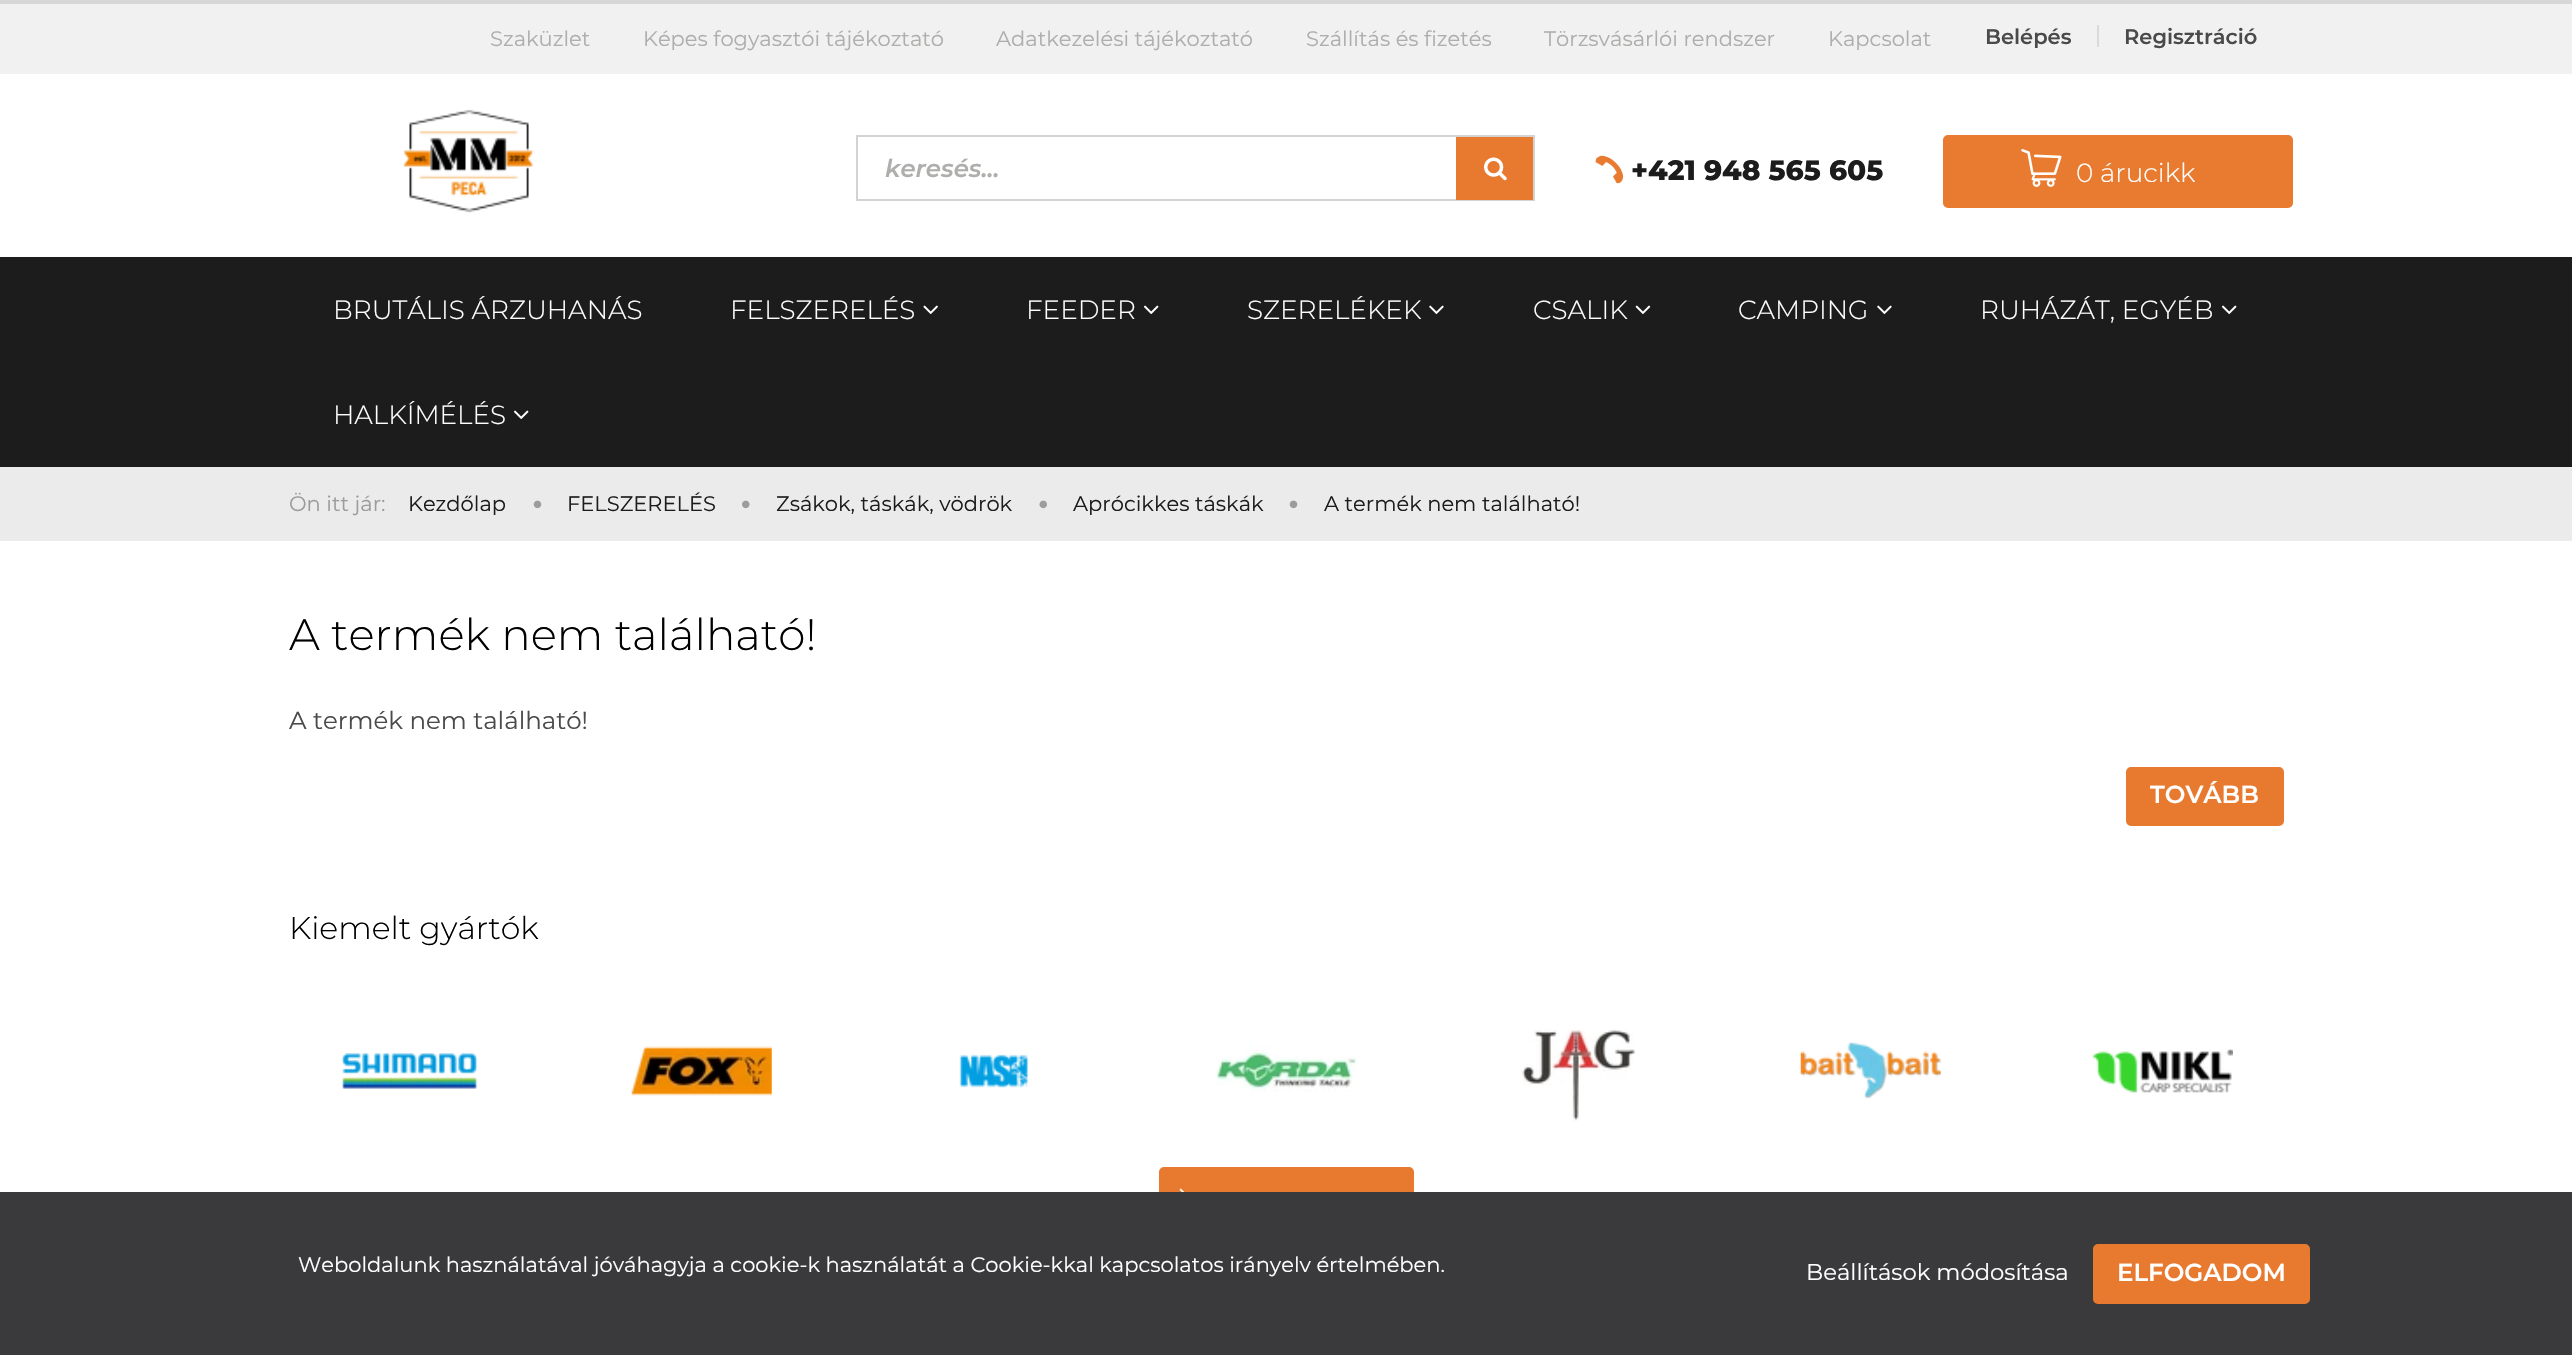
void draw(SkCanvas* canvas) {
	SkPaint fill;
	fill.setAntiAlias(true);
	auto makeFont = [&](const char* family, int weight, float size, bool italic = false) {
		SkFontStyle style(weight, SkFontStyle::kNormal_Width,
			italic ? SkFontStyle::kItalic_Slant : SkFontStyle::kUpright_Slant);
		SkFont result(fontMgr->matchFamilyStyle(family, style), size);
		result.setSubpixel(true);
		return result;
	};
	auto text = [&](const char* s, float x, float y, const SkFont& font) {
		canvas->drawString(s, x, y, font, fill);
	};
	auto box = [&](float l, float t, float r, float b) {
		canvas->drawRect(SkRect::MakeLTRB(l, t, r, b), fill);
	};
	auto picture = [&](const char* path, float l, float t, float r, float b) {
		auto image = SkImages::DeferredFromEncodedData(SkData::MakeFromFileName(path));
		canvas->drawImageRect(image, SkRect::MakeLTRB(l, t, r, b), SkSamplingOptions());
	};
	canvas->clear(0xFFFFFFFF);
	fill.setColor(0xFFD7D7D7);
	box(0, 0, 2572, 4);
	fill.setColor(0xFFF1F1F1);
	box(0, 4, 2572, 74);
	fill.setColor(0xFFDADADA);
	box(2097, 25, 2099, 47);
	picture("image0.png", 403, 109, 534, 213);
	fill.setStyle(SkPaint::kStroke_Style);
	fill.setStrokeWidth(2);
	fill.setColor(0xFFD3D3D3);
	canvas->drawRect(SkRect::MakeLTRB(857, 136, 1534, 200), fill);
	fill.setStyle(SkPaint::kFill_Style);
	fill.setColor(0xFFE87A30);
	box(1456, 137, 1533, 200);
	picture("image1.png", 1484, 157, 1507, 181);
	picture("image2.png", 1595, 155, 1624, 184);
	fill.setColor(0xFFE87B30);
	canvas->drawRoundRect(SkRect::MakeLTRB(1945, 137, 2291, 206), 3, 3, fill);
	fill.setStyle(SkPaint::kStroke_Style);
	fill.setStrokeWidth(4);
	canvas->drawRoundRect(SkRect::MakeLTRB(1945, 137, 2291, 206), 3, 3, fill);
	picture("image3.png", 2021, 149, 2062, 187);
	fill.setStyle(SkPaint::kFill_Style);
	fill.setColor(0xFF1C1C1C);
	box(0, 257, 2572, 467);
	picture("image4.png", 923, 305, 938, 314);
	picture("image5.png", 1143, 305, 1159, 314);
	picture("image6.png", 1429, 305, 1444, 314);
	picture("image7.png", 1635, 305, 1651, 314);
	picture("image6.png", 1877, 305, 1892, 314);
	picture("image5.png", 2221, 305, 2237, 314);
	picture("image5.png", 513, 410, 529, 419);
	fill.setColor(0xFFEBEBEB);
	box(0, 467, 2572, 541);
	picture("image8.png", 533, 500, 542, 509);
	picture("image9.png", 742, 500, 750, 509);
	picture("image10.png", 1039, 500, 1047, 509);
	picture("image8.png", 1289, 500, 1298, 509);
	fill.setColor(0xFFE87A30);
	canvas->drawRoundRect(SkRect::MakeLTRB(2128, 769, 2282, 824), 3, 3, fill);
	fill.setStyle(SkPaint::kStroke_Style);
	canvas->drawRoundRect(SkRect::MakeLTRB(2128, 769, 2282, 824), 3, 3, fill);
	picture("image11.png", 342, 1053, 478, 1089);
	picture("image12.png", 631, 1046, 772, 1096);
	picture("image13.png", 959, 1054, 1029, 1088);
	picture("image14.png", 1216, 1044, 1357, 1092);
	picture("image15.png", 1522, 1029, 1635, 1121);
	picture("image16.png", 1800, 1042, 1941, 1099);
	picture("image17.png", 2093, 1049, 2233, 1093);
	fill.setStyle(SkPaint::kFill_Style);
	canvas->drawRoundRect(SkRect::MakeLTRB(1161, 1169, 1412, 1220), 3, 3, fill);
	fill.setStyle(SkPaint::kStroke_Style);
	canvas->drawRoundRect(SkRect::MakeLTRB(1161, 1169, 1412, 1220), 3, 3, fill);
	picture("image18.png", 1179, 1188, 1185, 1192);
	fill.setStyle(SkPaint::kFill_Style);
	fill.setColor(0xFF3A393B);
	box(0, 1192, 2572, 1355);
	fill.setColor(0xFFE87A30);
	canvas->drawRoundRect(SkRect::MakeLTRB(2095, 1246, 2308, 1302), 3, 3, fill);
	fill.setStyle(SkPaint::kStroke_Style);
	canvas->drawRoundRect(SkRect::MakeLTRB(2095, 1246, 2308, 1302), 3, 3, fill);
	auto font1 = makeFont("Montserrat", 400, 21);
	fill.setStyle(SkPaint::kFill_Style);
	fill.setColor(0xFFAEAEAD);
	text("Szaküzlet", 490, 46, font1);
	text("Képes fogyasztói tájékoztató", 643, 46, font1);
	text("Adatkezelési tájékoztató", 996, 46, font1);
	text("Szállítás és fizetés", 1306, 46, font1);
	text("Törzsvásárlói rendszer", 1544, 46, font1);
	text("Kapcsolat", 1828, 46, font1);
	auto font2 = makeFont("Montserrat", 600, 21);
	fill.setColor(0xFF4A4A4A);
	text("Belépés", 1985, 44, font2);
	text("Regisztráció", 2124, 44, font2);
	auto font3 = makeFont("Montserrat", 600, 24.5f, true);
	fill.setColor(0xFFAEAEAD);
	text("keresés...", 885, 177, font3);
	auto font4 = makeFont("Montserrat", 800, 28);
	fill.setColor(0xFF1C1C1C);
	text("+421 948 565 605", 1631, 180, font4);
	auto font5 = makeFont("Montserrat", 300, 26.25f);
	fill.setColor(0xFFFFFFFF);
	text("0 árucikk", 2076, 182, font5);
	text("BRUTÁLIS ÁRZUHANÁS", 333, 319, font5);
	text("FELSZERELÉS", 730, 319, font5);
	text("FEEDER", 1026, 319, font5);
	text("SZERELÉKEK", 1247, 319, font5);
	text("CSALIK", 1533, 319, font5);
	text("CAMPING", 1738, 319, font5);
	text("RUHÁZÁT, EGYÉB", 1980, 319, font5);
	text("HALKÍMÉLÉS", 333, 424, font5);
	fill.setColor(0xFF9B9C9C);
	text("Ön itt jár:", 289, 511, font1);
	fill.setColor(0xFF1C1C1C);
	text("Kezdőlap", 408, 511, font1);
	text("FELSZERELÉS", 567, 511, font1);
	text("Zsákok, táskák, vödrök", 776, 511, font1);
	text("Aprócikkes táskák", 1073, 511, font1);
	text("A termék nem található!", 1324, 511, font1);
	auto font6 = makeFont("Montserrat", 300, 43.75f);
	fill.setColor(0xFF000000);
	text("A termék nem található!", 289, 650, font6);
	auto font7 = makeFont("Montserrat", 400, 24.5f);
	fill.setColor(0xFF4A4A4A);
	text("A termék nem található!", 289, 729, font7);
	auto font8 = makeFont("Montserrat", 600, 24.5f);
	fill.setColor(0xFFFFFFFF);
	text("TOVÁBB", 2150, 803, font8);
	auto font9 = makeFont("Montserrat", 300, 31.5f);
	fill.setColor(0xFF000000);
	text("Kiemelt gyártók", 289, 939, font9);
	fill.setColor(0xFFFFFFFF);
	text("Weboldalunk használatával jóváhagyja a cookie-k használatát a Cookie-kkal kapcsolatos irányelv értelmében.", 298, 1272, font1);
	auto font10 = makeFont("Montserrat", 400, 22.75f);
	text("Beállítások módosítása", 1806, 1280, font10);
	text("ELFOGADOM", 2117, 1281, font8);
}
